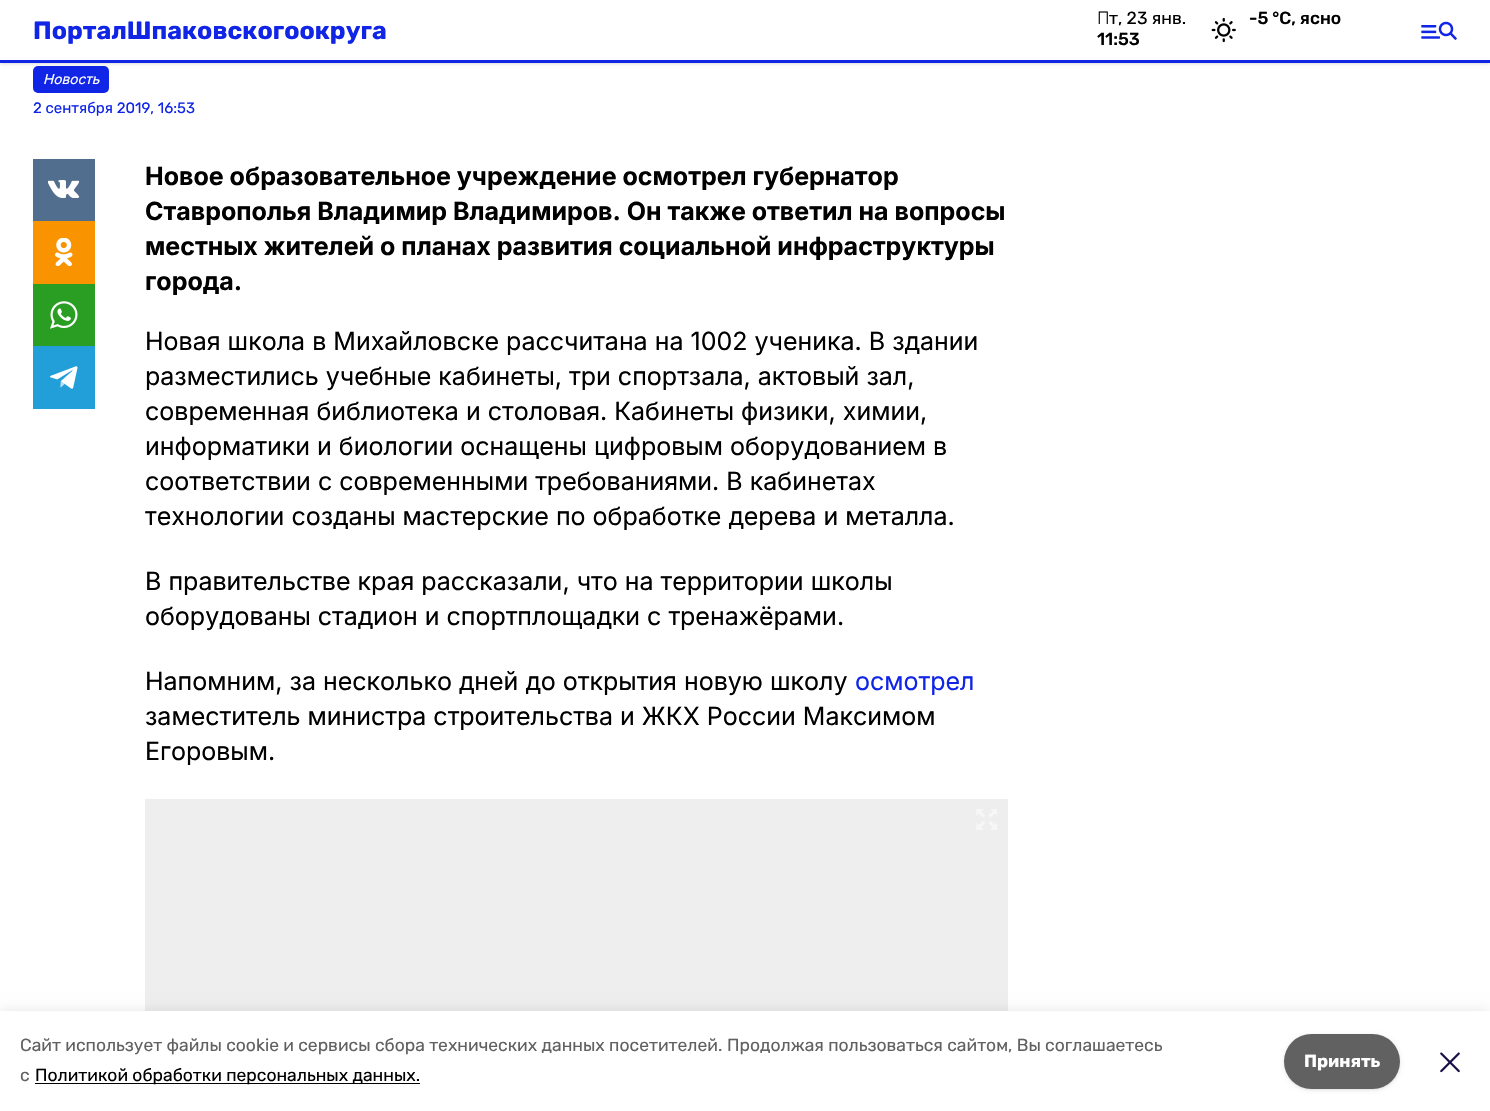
void draw(SkCanvas* canvas) {
	SkPaint fill;
	fill.setAntiAlias(true);
	auto makeFont = [&](const char* family, int weight, float size, bool italic = false) {
		SkFontStyle style(weight, SkFontStyle::kNormal_Width,
			italic ? SkFontStyle::kItalic_Slant : SkFontStyle::kUpright_Slant);
		SkFont result(fontMgr->matchFamilyStyle(family, style), size);
		result.setSubpixel(true);
		return result;
	};
	auto text = [&](const char* s, float x, float y, const SkFont& font) {
		canvas->drawString(s, x, y, font, fill);
	};
	auto box = [&](float l, float t, float r, float b) {
		canvas->drawRect(SkRect::MakeLTRB(l, t, r, b), fill);
	};
	auto roundBox = [&](float l, float t, float r, float b, float radius) {
		canvas->drawRoundRect(SkRect::MakeLTRB(l, t, r, b), radius, radius, fill);
	};
	auto picture = [&](const char* path, float l, float t, float r, float b) {
		auto image = SkImages::DeferredFromEncodedData(SkData::MakeFromFileName(path));
		canvas->drawImageRect(image, SkRect::MakeLTRB(l, t, r, b), SkSamplingOptions());
	};
	canvas->clear(0xFFFFFFFF);
	fill.setColor(0xFF1025E6);
	roundBox(33, 66, 109, 93, 5);
	fill.setColor(0x1A000000);
	fill.setMaskFilter(SkMaskFilter::MakeBlur(kNormal_SkBlurStyle, 1));
	canvas->drawRect(SkRect::MakeLTRB(1, 3, 1489, 63), fill);
	fill.setMaskFilter(nullptr);
	fill.setMaskFilter(SkMaskFilter::MakeBlur(kNormal_SkBlurStyle, 2));
	canvas->drawRect(SkRect::MakeLTRB(0, 1, 1490, 64), fill);
	fill.setMaskFilter(nullptr);
	fill.setColor(0xFFFFFFFF);
	box(0, 0, 1490, 60);
	fill.setColor(0xFF1025E6);
	box(0, 60, 1490, 63);
	picture("image0.png", 1211, 18, 1236, 43);
	picture("image1.png", 1421, 21, 1457, 40);
	fill.setColor(0xFF526E8F);
	box(33, 159, 95, 221);
	picture("image2.png", 48, 180, 80, 198);
	fill.setColor(0xFFF99400);
	box(33, 221, 95, 284);
	picture("image3.png", 55, 238, 73, 266);
	fill.setColor(0xFF2A9E22);
	box(33, 284, 95, 346);
	picture("image4.png", 50, 301, 78, 329);
	fill.setColor(0xFF229ED9);
	box(33, 346, 95, 409);
	picture("image5.png", 50, 366, 78, 389);
	fill.setColor(0xFFEEEEEE);
	box(145, 799, 1008, 1011);
	picture("image6.png", 976, 809, 997, 830);
	fill.setColor(0x1A000000);
	fill.setMaskFilter(SkMaskFilter::MakeBlur(kNormal_SkBlurStyle, 6));
	canvas->drawRect(SkRect::MakeLTRB(0, 1011, 1490, 1111), fill);
	fill.setMaskFilter(nullptr);
	fill.setColor(0xFFFFFFFF);
	box(0, 1011, 1490, 1111);
	fill.setColor(0xFF000000);
	box(35, 1083, 420, 1084);
	fill.setColor(0x1A000000);
	fill.setMaskFilter(SkMaskFilter::MakeBlur(kNormal_SkBlurStyle, 1));
	canvas->drawRoundRect(SkRect::MakeLTRB(1285, 1036, 1399, 1089), 26.5f, 26.5f, fill);
	fill.setMaskFilter(nullptr);
	fill.setMaskFilter(SkMaskFilter::MakeBlur(kNormal_SkBlurStyle, 2));
	canvas->drawRoundRect(SkRect::MakeLTRB(1284, 1035, 1400, 1090), 27.5f, 27.5f, fill);
	fill.setMaskFilter(nullptr);
	fill.setColor(0xFF616161);
	roundBox(1284, 1034, 1400, 1089, 27.5f);
	picture("image7.png", 1440, 1052, 1460, 1073);
	auto font1 = makeFont("Rubik", 700, 25);
	fill.setColor(0xFF1025E6);
	text("Портал Шпаковского округа", 33, 39, font1);
	auto font2 = makeFont("Noto Sans", 300, 17.5f);
	fill.setColor(0xFF000000);
	text("П", 1097, 24, font2);
	auto font3 = makeFont("Rubik", 400, 17.5f);
	text("т, 23 янв.", 1109, 24, font3);
	auto font4 = makeFont("Rubik", 500, 17.5f);
	text("11:53", 1097, 45, font4);
	text("-5 °С, ясно", 1249, 24, font4);
	auto font5 = makeFont("Inter", 400, 13.75f, true);
	fill.setColor(0xFFFFFFFF);
	text("Новость", 43, 84, font5);
	auto font6 = makeFont("Rubik", 400, 15);
	fill.setColor(0xFF1025E6);
	text("2 сентября 2019, 16:53", 33, 113, font6);
	auto font7 = makeFont("Inter", 700, 25);
	fill.setColor(0xFF000000);
	text("Новое образовательное учреждение осмотрел губернатор", 145, 185, font7);
	text("Ставрополья Владимир Владимиров. Он также ответил на вопросы", 145, 220, font7);
	text("местных жителей о планах развития социальной инфраструктуры", 145, 255, font7);
	text("города.", 145, 290, font7);
	auto font8 = makeFont("Inter", 400, 25);
	text("Новая школа в Михайловске рассчитана на 1002 ученика. В здании", 145, 350, font8);
	text("разместились учебные кабинеты, три спортзала, актовый зал,", 145, 385, font8);
	text("современная библиотека и столовая. Кабинеты физики, химии,", 145, 420, font8);
	text("информатики и биологии оснащены цифровым оборудованием в", 145, 455, font8);
	text("соответствии с современными требованиями. В кабинетах", 145, 490, font8);
	text("технологии созданы мастерские по обработке дерева и металла.", 145, 525, font8);
	text("В правительстве края рассказали, что на территории школы", 145, 590, font8);
	text("оборудованы стадион и спортплощадки с тренажёрами.", 145, 625, font8);
	text("Напомним, за несколько дней до открытия новую школу", 145, 690, font8);
	fill.setColor(0xFF1025E6);
	text("осмотрел", 855, 690, font8);
	fill.setColor(0xFF000000);
	text("заместитель министра строительства и ЖКХ России Максимом", 145, 725, font8);
	text("Егоровым.", 145, 760, font8);
	fill.setColor(0xFF616161);
	text("Cайт использует файлы cookie и сервисы сбора технических данных посетителей.", 20, 1051, font3);
	text("Продолжая пользоваться сайтом, Вы соглашаетесь", 727, 1051, font3);
	text("с", 20, 1081, font3);
	fill.setColor(0xFF000000);
	text("Политикой обработки персональных данных.", 35, 1081, font3);
	auto font9 = makeFont("Rubik", 700, 17.5f);
	fill.setColor(0xFFFFFFFF);
	text("Принять", 1304, 1067, font9);
}
